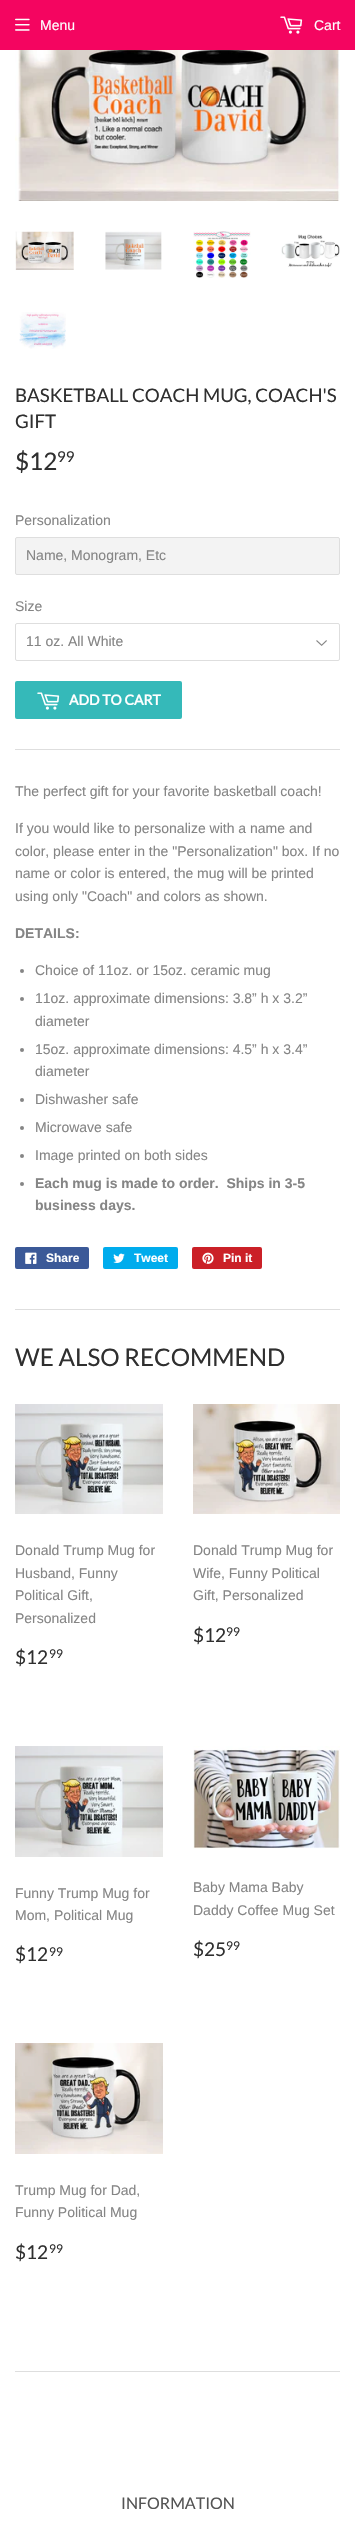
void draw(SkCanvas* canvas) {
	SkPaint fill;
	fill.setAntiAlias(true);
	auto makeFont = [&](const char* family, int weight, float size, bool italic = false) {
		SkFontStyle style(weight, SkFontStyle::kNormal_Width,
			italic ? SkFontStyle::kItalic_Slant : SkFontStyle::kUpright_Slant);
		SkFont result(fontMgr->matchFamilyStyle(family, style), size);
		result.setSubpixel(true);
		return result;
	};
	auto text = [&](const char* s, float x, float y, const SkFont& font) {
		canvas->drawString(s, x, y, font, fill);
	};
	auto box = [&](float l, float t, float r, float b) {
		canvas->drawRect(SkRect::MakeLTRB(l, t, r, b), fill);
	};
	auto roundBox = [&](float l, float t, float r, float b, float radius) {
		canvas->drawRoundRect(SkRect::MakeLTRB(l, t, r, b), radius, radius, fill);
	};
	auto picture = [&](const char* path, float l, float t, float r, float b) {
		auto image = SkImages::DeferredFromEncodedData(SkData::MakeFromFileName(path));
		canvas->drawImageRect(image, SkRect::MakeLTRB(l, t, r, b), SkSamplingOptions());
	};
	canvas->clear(0xFFFFFFFF);
	fill.setColor(0xFFF40560);
	box(0, 0, 355, 50);
	picture("image0.png", 15, 18, 30, 31);
	picture("image1.png", 280, 16, 303, 34);
	picture("image2.png", 15, 50, 340, 201);
	picture("image3.png", 15, 231, 74, 270);
	picture("image4.png", 105, 231, 162, 270);
	picture("image5.png", 193, 231, 251, 278);
	picture("image6.png", 281, 234, 340, 268);
	picture("image7.png", 19, 312, 66, 349);
	fill.setColor(0xFFF3F3F3);
	canvas->drawRoundRect(SkRect::MakeLTRB(15.5f, 537.5f, 339.5f, 574.5f), 1.5f, 1.5f, fill);
	fill.setStyle(SkPaint::kStroke_Style);
	fill.setStrokeWidth(1);
	fill.setColor(0xFFDEDEDE);
	canvas->drawRoundRect(SkRect::MakeLTRB(15.5f, 537.5f, 339.5f, 574.5f), 1.5f, 1.5f, fill);
	picture("image8.png", 316, 640, 327, 646);
	canvas->drawRoundRect(SkRect::MakeLTRB(15.5f, 623.5f, 339.5f, 660.5f), 1.5f, 1.5f, fill);
	fill.setStyle(SkPaint::kFill_Style);
	fill.setColor(0xFF35B9B9);
	roundBox(15, 681, 182, 719, 2);
	picture("image9.png", 37, 692, 60, 710);
	fill.setColor(0xFFDEDEDE);
	box(15, 749, 340, 750);
	fill.setColor(0xFF858585);
	canvas->drawCircle(22, 971, 2, fill);
	canvas->drawCircle(22, 999, 2, fill);
	canvas->drawCircle(22, 1050, 2, fill);
	canvas->drawCircle(22, 1100, 2, fill);
	canvas->drawCircle(22, 1128, 2, fill);
	canvas->drawCircle(22, 1156, 2, fill);
	canvas->drawCircle(22, 1184, 2, fill);
	fill.setColor(0xFF3B5998);
	roundBox(15, 1247, 89, 1269, 2);
	picture("image10.png", 25, 1252, 37, 1264);
	fill.setColor(0xFF00ACED);
	roundBox(103, 1247, 178, 1269, 2);
	picture("image11.png", 113, 1253, 125, 1263);
	fill.setColor(0xFFCB2027);
	roundBox(192, 1247, 262, 1269, 2);
	picture("image12.png", 202, 1252, 214, 1264);
	fill.setColor(0xFFDEDEDE);
	box(15, 1309, 340, 1310);
	picture("image13.png", 15, 1404, 163, 1514);
	picture("image14.png", 193, 1404, 340, 1514);
	picture("image15.png", 15, 1746, 163, 1857);
	picture("image16.png", 193, 1746, 340, 1849);
	picture("image17.png", 15, 2043, 163, 2154);
	box(15, 2371, 340, 2372);
	auto font1 = makeFont("Liberation Sans", 400, 14);
	fill.setColor(0xFFFFFFFF);
	text("Menu", 40, 30, font1);
	text("Cart", 314, 30, font1);
	auto font2 = makeFont("Lato", 400, 18.7f);
	fill.setColor(0xFF2F2F2F);
	text("BASKETBALL COACH MUG, COACH'S", 15, 402, font2);
	text("GIFT", 15, 428, font2);
	auto font3 = makeFont("Lato", 400, 24.25f);
	text("$12", 15, 470, font3);
	auto font4 = makeFont("Lato", 400, 15);
	text("99", 57, 462, font4);
	fill.setColor(0xFF858585);
	text("Personalization", 15, 525, font1);
	text("Name, Monogram, Etc", 26, 560, font1);
	text("Size", 15, 611, font1);
	text("11 oz. All White", 26, 646, font1);
	auto font5 = makeFont("Lato", 700, 14);
	fill.setColor(0xFFFFFFFF);
	text("ADD TO CART", 69, 705, font5);
	fill.setColor(0xFF858585);
	text("The perfect gift for your favorite basketball coach!", 15, 796, font1);
	text("If you would like to personalize with a name and", 15, 833, font1);
	text("color, please enter in the \"Personalization\" box. If no", 15, 856, font1);
	text("name or color is entered, the mug will be printed", 15, 878, font1);
	text("using only \"Coach\" and colors as shown.", 15, 901, font1);
	auto font6 = makeFont("Liberation Sans", 700, 14);
	text("DETAILS:", 15, 938, font6);
	text("Choice of 11oz. or 15oz. ceramic mug", 35, 975, font1);
	text("11oz. approximate dimensions: 3.8” h x 3.2”", 35, 1003, font1);
	text("diameter", 35, 1026, font1);
	text("15oz. approximate dimensions: 4.5” h x 3.4”", 35, 1054, font1);
	text("diameter", 35, 1076, font1);
	text("Dishwasher safe", 35, 1104, font1);
	text("Microwave safe", 35, 1132, font1);
	text("Image printed on both sides", 35, 1160, font1);
	text("Each mug is made to order.  Ships in 3-5", 35, 1188, font6);
	text("business days.", 35, 1210, font6);
	auto font7 = makeFont("Liberation Sans", 700, 12);
	fill.setColor(0xFFFFFFFF);
	text("Share", 46, 1262, font7);
	text("Tweet", 134, 1262, font7);
	text("Pin it", 223, 1262, font7);
	fill.setColor(0xFF2F2F2F);
	text("WE ALSO RECOMMEND", 15, 1366, font3);
	fill.setColor(0xFF858585);
	text("Donald Trump Mug for", 15, 1555, font1);
	text("Husband, Funny", 15, 1578, font1);
	text("Political Gift,", 15, 1600, font1);
	text("Personalized", 15, 1623, font1);
	auto font8 = makeFont("Lato", 400, 19);
	fill.setColor(0xFF2F2F2F);
	text("$12", 15, 1664, font8);
	auto font9 = makeFont("Lato", 400, 12);
	text("99", 49, 1658, font9);
	fill.setColor(0xFF858585);
	text("Donald Trump Mug for", 193, 1555, font1);
	text("Wife, Funny Political", 193, 1578, font1);
	text("Gift, Personalized", 193, 1600, font1);
	fill.setColor(0xFF2F2F2F);
	text("$12", 193, 1642, font8);
	text("99", 226, 1636, font9);
	fill.setColor(0xFF858585);
	text("Funny Trump Mug for", 15, 1898, font1);
	text("Mom, Political Mug", 15, 1920, font1);
	fill.setColor(0xFF2F2F2F);
	text("$12", 15, 1961, font8);
	text("99", 49, 1956, font9);
	fill.setColor(0xFF858585);
	text("Baby Mama Baby", 193, 1892, font1);
	text("Daddy Coffee Mug Set", 193, 1915, font1);
	fill.setColor(0xFF2F2F2F);
	text("$25", 193, 1956, font8);
	text("99", 226, 1950, font9);
	fill.setColor(0xFF858585);
	text("Trump Mug for Dad,", 15, 2195, font1);
	text("Funny Political Mug", 15, 2217, font1);
	fill.setColor(0xFF2F2F2F);
	text("$12", 15, 2259, font8);
	text("99", 49, 2253, font9);
	auto font10 = makeFont("Lato", 400, 16);
	fill.setColor(0xFF545454);
	text("INFORMATION", 121, 2509, font10);
}
